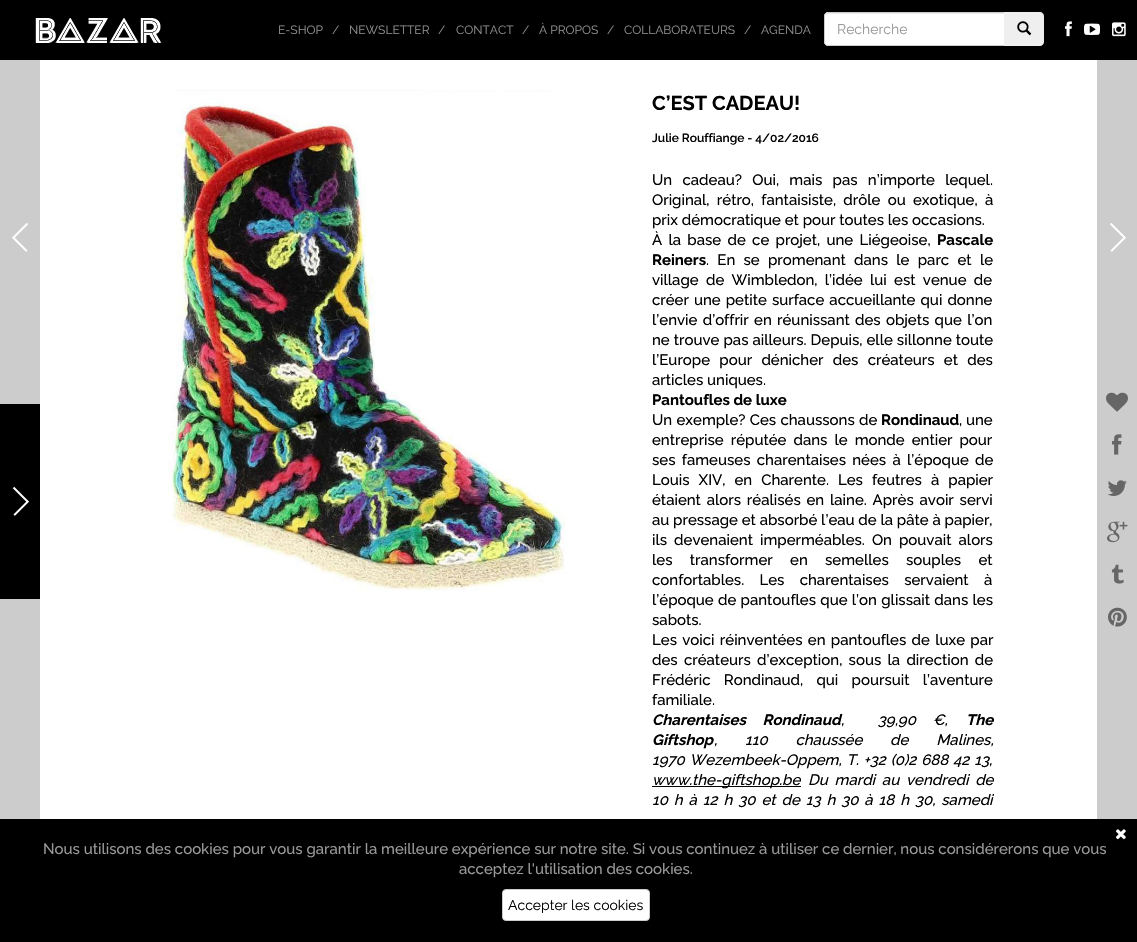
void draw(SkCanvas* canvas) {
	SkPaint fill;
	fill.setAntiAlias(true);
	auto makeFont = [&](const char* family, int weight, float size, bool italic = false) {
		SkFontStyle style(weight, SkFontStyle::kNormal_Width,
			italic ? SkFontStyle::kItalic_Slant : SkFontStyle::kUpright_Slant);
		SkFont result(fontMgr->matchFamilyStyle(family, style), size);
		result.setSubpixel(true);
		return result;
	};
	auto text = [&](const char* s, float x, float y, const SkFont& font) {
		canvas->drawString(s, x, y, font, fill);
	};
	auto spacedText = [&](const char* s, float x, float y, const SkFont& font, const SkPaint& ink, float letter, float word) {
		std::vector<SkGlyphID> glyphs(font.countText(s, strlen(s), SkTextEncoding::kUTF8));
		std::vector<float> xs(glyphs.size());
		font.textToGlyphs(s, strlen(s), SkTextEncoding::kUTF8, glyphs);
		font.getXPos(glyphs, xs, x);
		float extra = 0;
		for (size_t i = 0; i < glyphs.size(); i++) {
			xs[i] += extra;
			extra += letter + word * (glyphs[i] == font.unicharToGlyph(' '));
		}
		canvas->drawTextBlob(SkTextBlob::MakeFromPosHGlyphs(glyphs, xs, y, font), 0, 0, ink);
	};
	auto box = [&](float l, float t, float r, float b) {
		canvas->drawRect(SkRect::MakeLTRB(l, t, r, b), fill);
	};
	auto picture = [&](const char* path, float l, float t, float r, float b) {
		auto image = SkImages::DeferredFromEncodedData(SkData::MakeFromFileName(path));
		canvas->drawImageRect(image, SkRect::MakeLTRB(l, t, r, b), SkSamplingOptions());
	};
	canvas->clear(0xFFFFFFFF);
	fill.setColor(0xFF000000);
	box(0, 0, 1137, 60);
	picture("image0.png", 35, 18, 162, 43);
	fill.setColor(0xFFFFFFFF);
	canvas->drawPath(SkPathBuilder().moveTo(828, 12).lineTo(1005, 12).lineTo(1005, 46).lineTo(828, 46).cubicTo(826, 46, 824, 44, 824, 42).lineTo(824, 16).cubicTo(824, 14, 826, 12, 828, 12).close().detach(), fill);
	fill.setColor(0xFFECECEC);
	canvas->drawPath(SkPathBuilder().moveTo(828, 14).lineTo(1004, 14).lineTo(1004, 13).lineTo(827, 13).cubicTo(825, 14, 825, 15, 825, 17).cubicTo(825, 15, 826, 14, 828, 14).close().detach(), fill);
	fill.setStyle(SkPaint::kStroke_Style);
	fill.setStrokeWidth(1);
	fill.setColor(0xFFCCCCCC);
	canvas->drawPath(SkPathBuilder().moveTo(828, 12.5f).lineTo(1004.5f, 12.5f).lineTo(1004.5f, 45.5f).lineTo(828, 45.5f).cubicTo(826, 45.5f, 824.5f, 44, 824.5f, 42).lineTo(824.5f, 16).cubicTo(824.5f, 14, 826, 12.5f, 828, 12.5f).close().detach(), fill);
	fill.setStyle(SkPaint::kFill_Style);
	fill.setColor(0xFFEFEFEF);
	canvas->drawPath(SkPathBuilder().moveTo(1004, 12).lineTo(1040, 12).cubicTo(1042, 12, 1044, 14, 1044, 16).lineTo(1044, 42).cubicTo(1044, 44, 1042, 46, 1040, 46).lineTo(1004, 46).close().detach(), fill);
	picture("image1.png", 1017, 21, 1032, 36);
	picture("image2.png", 1065, 21, 1072, 37);
	picture("image3.png", 1084, 23, 1100, 35);
	picture("image4.png", 1112, 22, 1126, 37);
	fill.setColor(0xFFCCCCCC);
	box(0, 60, 40, 819);
	fill.setColor(0xFF000000);
	box(0, 404, 40, 599);
	picture("image5.png", 12, 486, 29, 516);
	picture("image6.png", 12, 223, 28, 252);
	picture("image7.png", 168, 90, 565, 591);
	box(652, 786, 801, 787);
	fill.setColor(0xFFCCCCCC);
	box(1097, 60, 1137, 819);
	picture("image8.png", 1110, 223, 1126, 252);
	picture("image9.png", 1106, 392, 1128, 412);
	picture("image10.png", 1112, 434, 1122, 455);
	picture("image11.png", 1107, 480, 1127, 496);
	picture("image12.png", 1107, 521, 1128, 543);
	picture("image13.png", 1111, 564, 1124, 584);
	picture("image14.png", 1108, 607, 1127, 627);
	fill.setColor(0xFF000000);
	box(0, 819, 1137, 942);
	picture("image15.png", 1116, 829, 1126, 840);
	fill.setColor(0xFFFFFFFF);
	canvas->drawRoundRect(SkRect::MakeLTRB(502.5f, 889.5f, 649.5f, 920.5f), 3.5f, 3.5f, fill);
	fill.setStyle(SkPaint::kStroke_Style);
	fill.setColor(0xFFCCCCCC);
	canvas->drawRoundRect(SkRect::MakeLTRB(502.5f, 889.5f, 649.5f, 920.5f), 3.5f, 3.5f, fill);
	auto font1 = makeFont("Raleway", 400, 12);
	fill.setStyle(SkPaint::kFill_Style);
	fill.setColor(0xFF918F90);
	text("E-SHOP", 278, 34, font1);
	text("/", 332, 34, font1);
	text("NEWSLETTER", 349, 34, font1);
	text("/", 438, 34, font1);
	text("CONTACT", 456, 34, font1);
	text("/", 522, 34, font1);
	text("À PROPOS", 539, 34, font1);
	text("/", 607, 34, font1);
	text("COLLABORATEURS", 624, 34, font1);
	text("/", 744, 34, font1);
	text("AGENDA", 761, 34, font1);
	auto font2 = makeFont("Raleway", 400, 14);
	fill.setColor(0xFF999999);
	text("Recherche", 837, 34, font2);
	auto font3 = makeFont("Raleway", 700, 20);
	fill.setColor(0xFF000000);
	text("C’EST CADEAU!", 652, 110, font3);
	auto font4 = makeFont("Raleway", 600, 12);
	text("Julie Rouffiange - 4/02/2016", 652, 142, font4);
	auto font5 = makeFont("Raleway", 500, 15);
	spacedText("Un cadeau? Oui, mais pas n’importe lequel.", 652, 185, font5, fill, 0, 6.5f);
	spacedText("Original, rétro, fantaisiste, drôle ou exotique, à", 652, 205, font5, fill, 0, 3.5f);
	text("prix démocratique et pour toutes les occasions.", 652, 225, font5);
	spacedText("À la base de ce projet, une Liégeoise,", 652, 245, font5, fill, 0, 2.5f);
	auto font6 = makeFont("Raleway", 700, 15);
	text("Pascale", 937, 245, font6);
	text("Reiners", 652, 265, font6);
	spacedText(". En se promenant dans le parc et le", 706, 265, font5, fill, 0, 4.5f);
	spacedText("village de Wimbledon, l’idée lui est venue de", 652, 285, font5, fill, 0, 3.5f);
	spacedText("créer une petite surface accueillante qui donne", 652, 305, font5, fill, 0, 1.25f);
	spacedText("l’envie d’offrir en réunissant des objets que l’on", 652, 325, font5, fill, 0, 1.5f);
	spacedText("ne trouve pas ailleurs. Depuis, elle sillonne toute", 652, 345, font5, fill, 0, 0.25f);
	spacedText("l’Europe pour dénicher des créateurs et des", 652, 365, font5, fill, 0, 5.5f);
	text("articles uniques.", 652, 385, font5);
	text("Pantoufles de luxe", 652, 405, font6);
	spacedText("Un exemple? Ces chaussons de", 652, 425, font5, fill, 0, 0.5f);
	text("Rondinaud", 881, 425, font6);
	text(", une", 959, 425, font5);
	spacedText("entreprise réputée dans le monde entier pour", 652, 445, font5, fill, 0, 3.25f);
	spacedText("ses fameuses charentaises nées à l’époque de", 652, 465, font5, fill, 0, 2.5f);
	spacedText("Louis XIV, en Charente. Les feutres à papier", 652, 485, font5, fill, 0, 5.25f);
	spacedText("étaient alors réalisés en laine. Après avoir servi", 652, 505, font5, fill, 0, 2);
	text("au pressage et absorbé l’eau de la pâte à papier,", 652, 525, font5);
	spacedText("ils devenaient imperméables. On pouvait alors", 652, 545, font5, fill, 0, 3.25f);
	spacedText("les transformer en semelles souples et", 652, 565, font5, fill, 0, 13.5f);
	spacedText("confortables. Les charentaises servaient à", 652, 585, font5, fill, 0, 11.5f);
	spacedText("l’époque de pantoufles que l’on glissait dans les", 652, 605, font5, fill, 0, 0.5f);
	text("sabots.", 652, 625, font5);
	spacedText("Les voici réinventées en pantoufles de luxe par", 652, 645, font5, fill, 0, 1.5f);
	spacedText("des créateurs d’exception, sous la direction de", 652, 665, font5, fill, 0, 2.5f);
	spacedText("Frédéric Rondinaud, qui poursuit l’aventure", 652, 685, font5, fill, 0, 9.5f);
	text("familiale.", 652, 705, font5);
	auto font7 = makeFont("Raleway", 700, 15, true);
	spacedText("Charentaises Rondinaud", 652, 725, font7, fill, 0, 13);
	auto font8 = makeFont("Raleway", 500, 15, true);
	spacedText(",  39,90 €,", 841, 725, font8, fill, 0, 13);
	text("The", 966, 725, font7);
	text("Giftshop", 652, 745, font7);
	spacedText(", 110 chaussée de Malines,", 714, 745, font8, fill, 0, 24);
	spacedText("1970 Wezembeek-Oppem, T. +32 (0)2 688 42 13,", 652, 765, font8, fill, 0, 1);
	text("www.the-giftshop.be", 652, 785, font8);
	spacedText("Du mardi au vendredi de", 808, 785, font8, fill, 0, 3);
	spacedText("10 h à 12 h 30 et de 13 h 30 à 18 h 30, samedi", 652, 805, font8, fill, 0, 2.1f);
	fill.setColor(0xFF999999);
	text("Nous utilisons des cookies pour vous garantir la meilleure expérience sur notre site. Si vous continuez à utiliser ce dernier, nous considérerons que vous", 43, 854, font5);
	text("acceptez l'utilisation des cookies.", 459, 874, font5);
	fill.setColor(0xFF000000);
	text("Accepter les cookies", 508, 910, font2);
}
